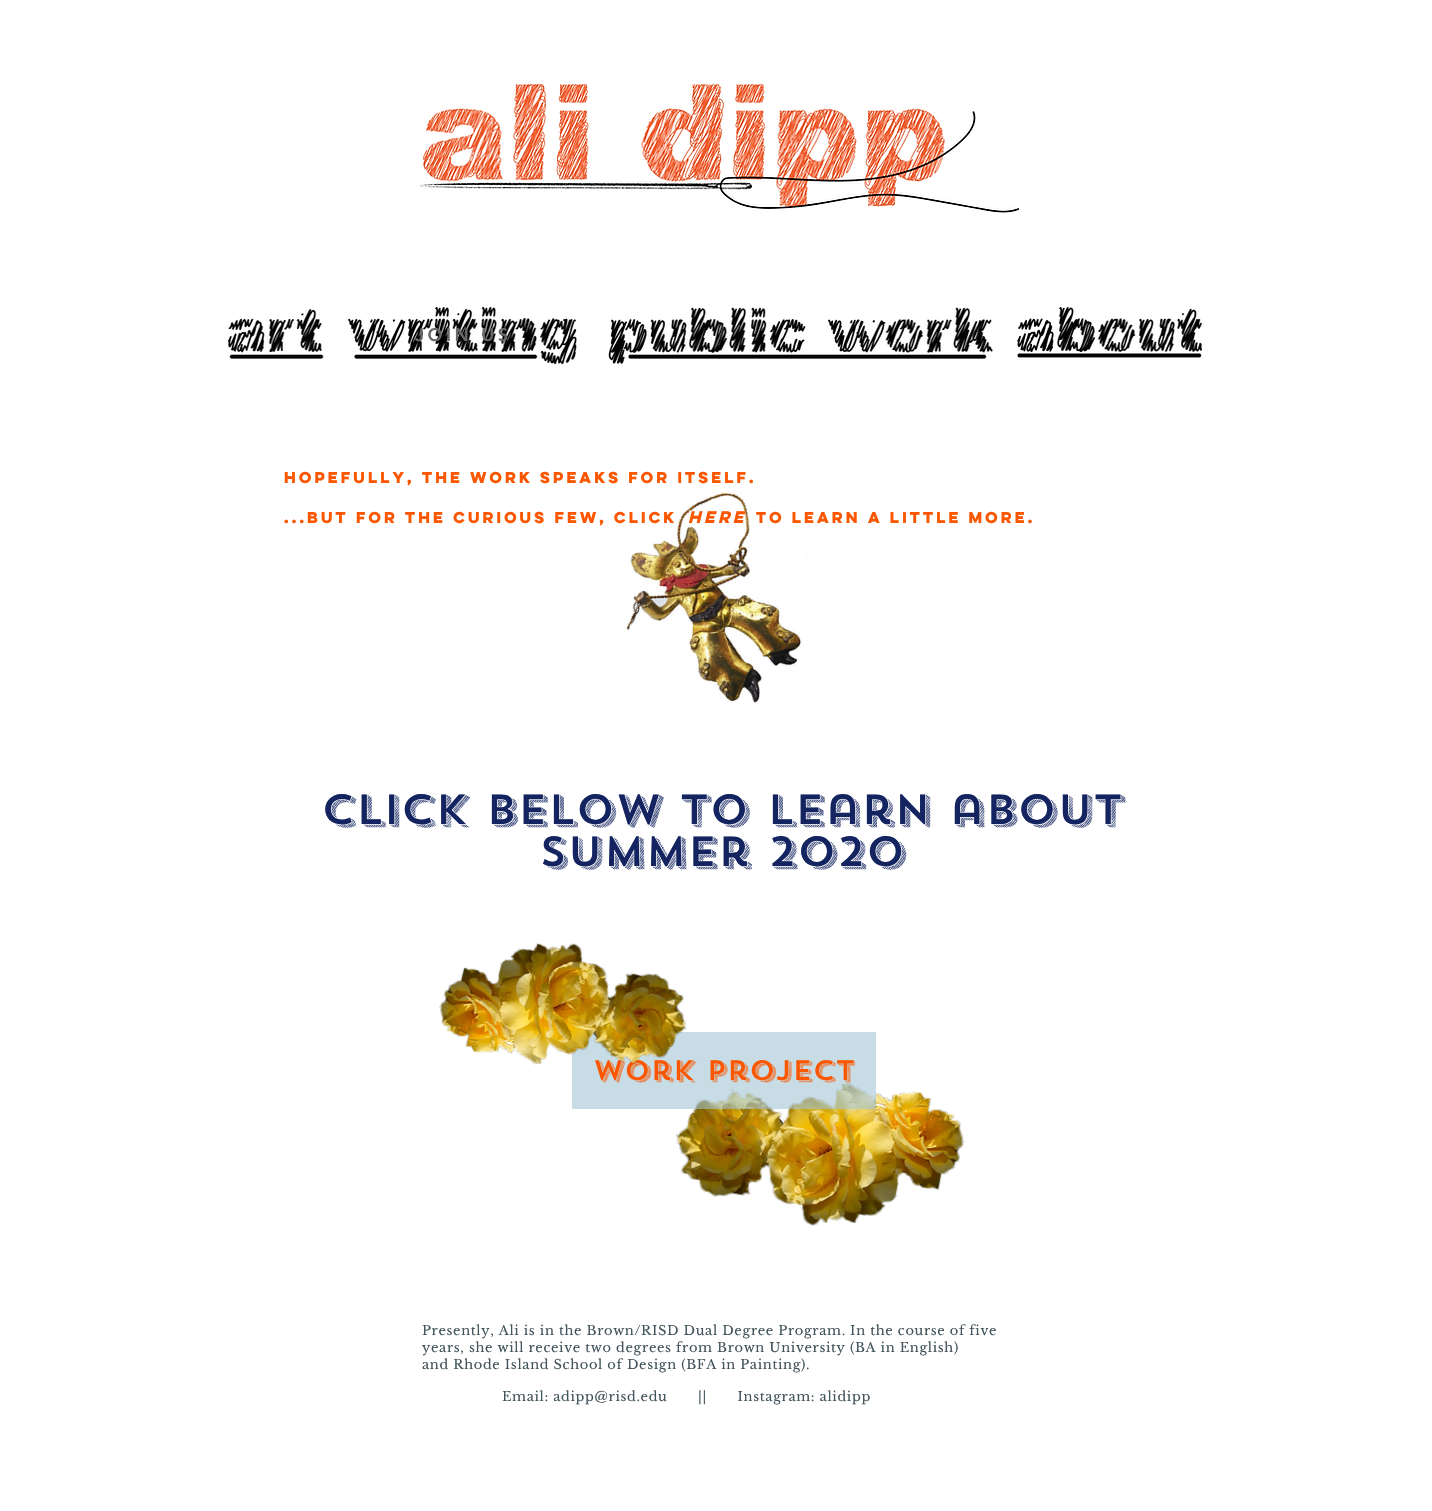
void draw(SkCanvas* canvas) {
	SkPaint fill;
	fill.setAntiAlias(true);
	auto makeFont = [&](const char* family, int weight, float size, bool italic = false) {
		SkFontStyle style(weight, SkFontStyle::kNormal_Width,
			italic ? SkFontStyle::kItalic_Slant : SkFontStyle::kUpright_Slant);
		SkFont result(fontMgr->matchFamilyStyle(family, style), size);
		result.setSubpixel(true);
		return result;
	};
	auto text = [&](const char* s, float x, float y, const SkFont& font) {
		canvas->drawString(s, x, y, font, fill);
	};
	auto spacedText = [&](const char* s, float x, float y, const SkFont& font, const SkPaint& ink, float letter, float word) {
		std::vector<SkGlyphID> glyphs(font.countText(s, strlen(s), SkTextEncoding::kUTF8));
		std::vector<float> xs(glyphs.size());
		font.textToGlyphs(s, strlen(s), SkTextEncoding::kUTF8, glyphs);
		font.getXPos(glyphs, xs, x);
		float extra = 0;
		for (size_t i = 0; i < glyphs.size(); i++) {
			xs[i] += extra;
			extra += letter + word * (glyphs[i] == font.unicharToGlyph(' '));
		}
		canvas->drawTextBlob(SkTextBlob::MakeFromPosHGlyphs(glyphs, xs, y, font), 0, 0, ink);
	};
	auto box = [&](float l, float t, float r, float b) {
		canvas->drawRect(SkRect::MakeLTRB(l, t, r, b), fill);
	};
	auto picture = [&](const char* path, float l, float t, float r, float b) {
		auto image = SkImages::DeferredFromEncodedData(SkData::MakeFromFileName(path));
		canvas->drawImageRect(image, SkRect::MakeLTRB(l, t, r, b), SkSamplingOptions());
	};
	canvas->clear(0xFFFFFFFF);
	picture("image0.png", 420, 83, 1019, 213);
	picture("image1.png", 228, 307, 1202, 364);
	picture("image2.png", 600, 492, 808, 703);
	picture("image4.png", 675, 1082, 965, 1226);
	fill.setColor(0x94A1C3D2);
	box(572, 1032, 876, 1109);
	auto font1 = makeFont("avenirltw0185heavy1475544", 900, 18);
	fill.setColor(0xFF686868);
	spacedText("JOIN US", 415, 341, font1, fill, 3.5f, 0);
	auto font2 = makeFont("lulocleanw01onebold", 700, 14);
	fill.setColor(0xFFFA5700);
	text("Hopefully, the work speaks for itself.", 284, 483, font2);
	text("...but for the curious few, click           to learn A little More.", 284, 523, font2);
	auto font3 = makeFont("lulocleanw01onebold", 700, 15, true);
	text("Here", 688, 523, font3);
	auto font4 = makeFont("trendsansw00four", 500, 42);
	fill.setColor(0xFF132460);
	text("Click below to learn about", 321, 824, font4);
	text("summer 2020", 539, 866, font4);
	canvas->save();
	canvas->clipRect(SkRect::MakeLTRB(593, 1052, 855, 1089));
	auto font5 = makeFont("trendsansw00four", 500, 28);
	fill.setColor(0xFFFA5700);
	text("Work Project", 593, 1080, font5);
	canvas->restore();
	picture("image3.png", 439, 943, 687, 1066);
	auto font6 = makeFont("Libre Baskerville", 400, 13);
	fill.setColor(0xFF42545B);
	spacedText("Presently, Ali is in the Brown/RISD Dual Degree Program. In the course of five", 422, 1335, font6, fill, 0.65f, 0);
	spacedText("years, she will receive two degrees from Brown University (BA in English)", 422, 1352, font6, fill, 0.65f, 0);
	spacedText("and Rhode Island School of Design (BFA in Painting).", 422, 1369, font6, fill, 0.65f, 0);
	spacedText("Email: adipp@risd.edu", 502, 1401, font6, fill, 0.65f, 0);
	spacedText("||       Instagram: alidipp", 698, 1401, font6, fill, 0.65f, 0);
}
